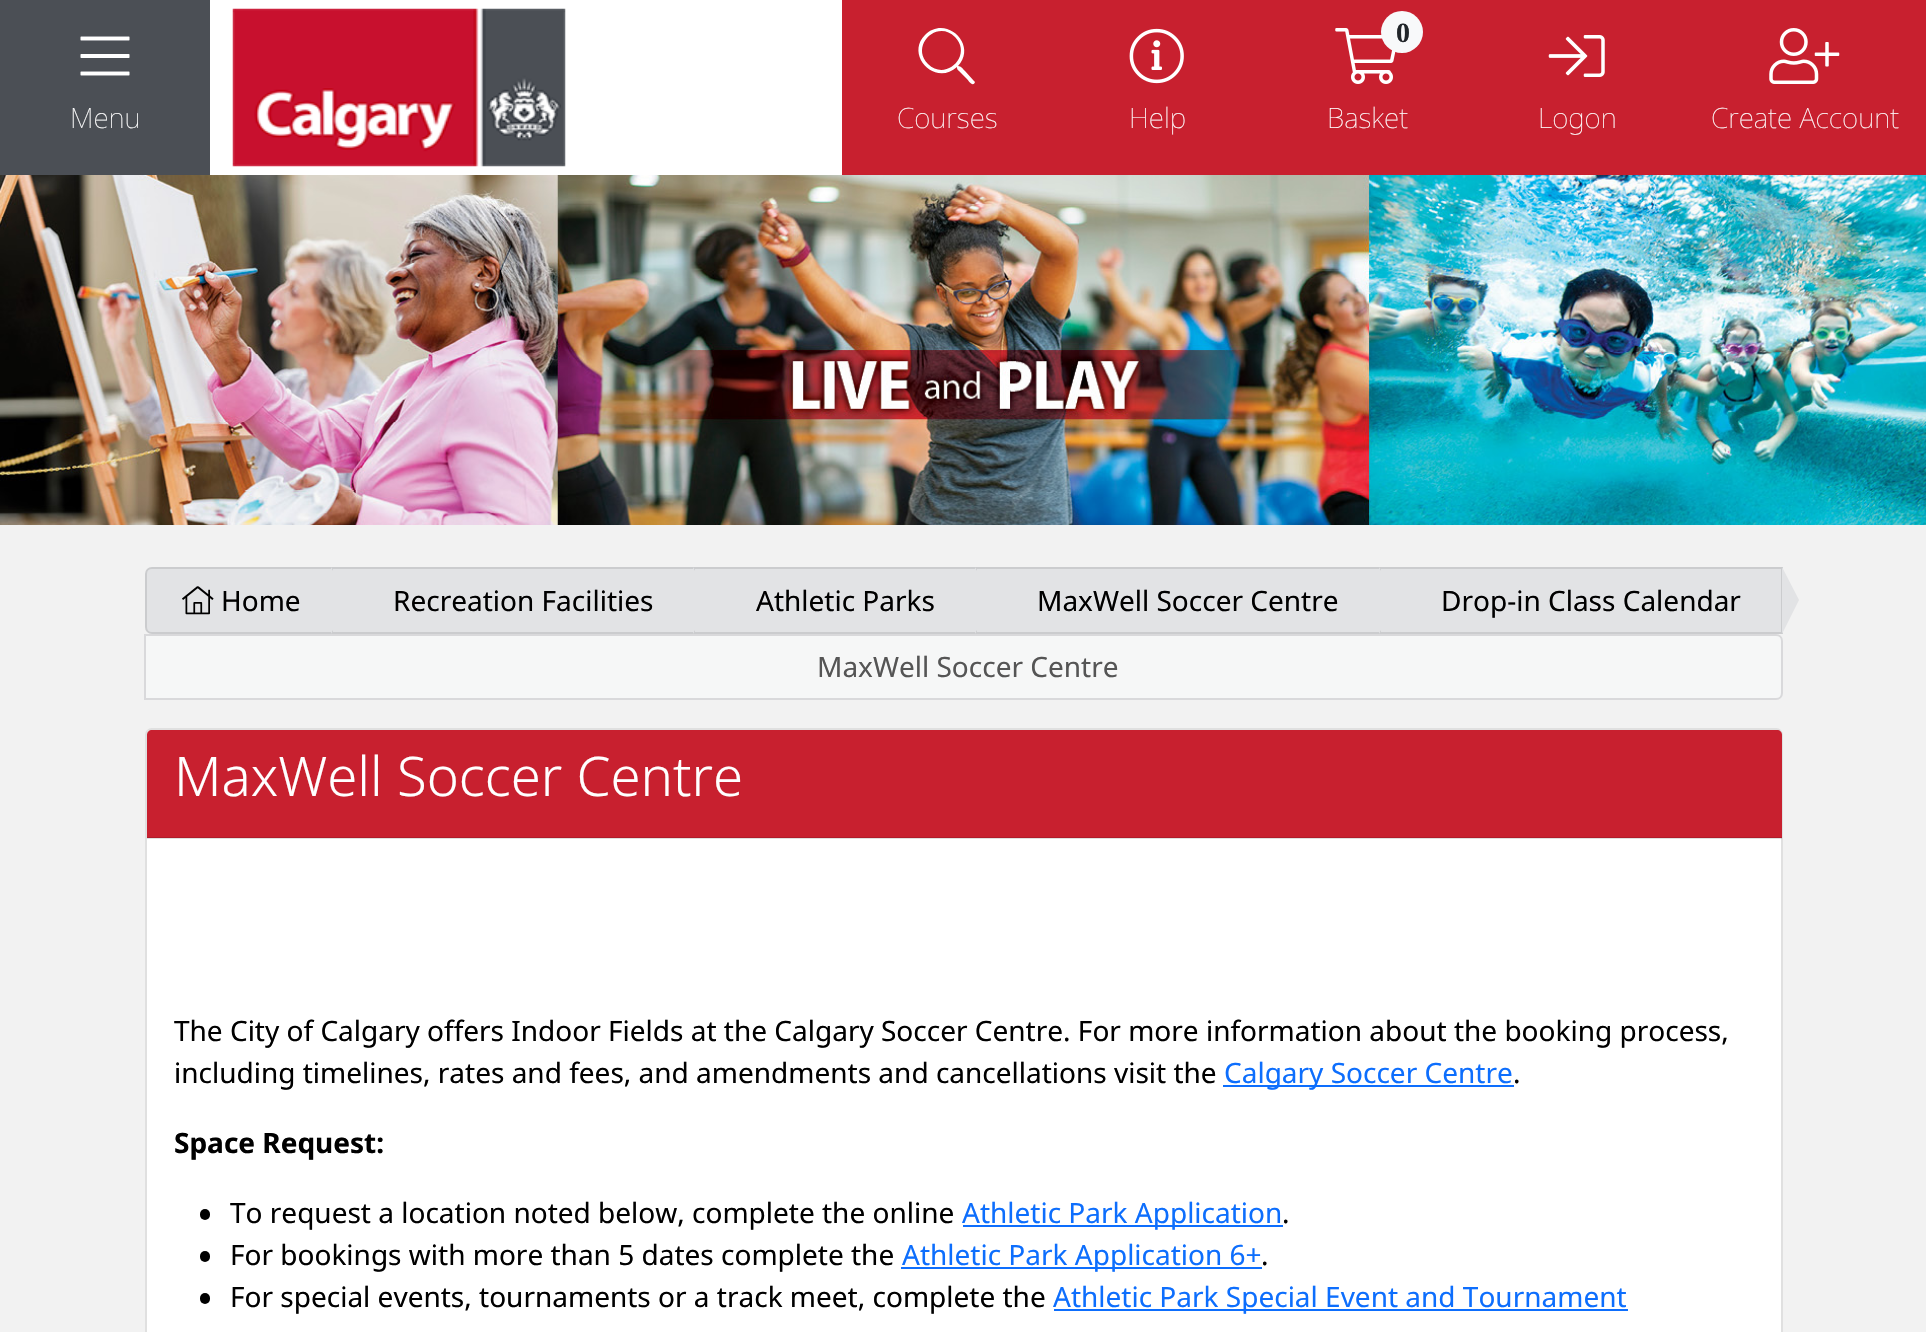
void draw(SkCanvas* canvas) {
	SkPaint fill;
	fill.setAntiAlias(true);
	auto makeFont = [&](const char* family, int weight, float size, bool italic = false) {
		SkFontStyle style(weight, SkFontStyle::kNormal_Width,
			italic ? SkFontStyle::kItalic_Slant : SkFontStyle::kUpright_Slant);
		SkFont result(fontMgr->matchFamilyStyle(family, style), size);
		result.setSubpixel(true);
		return result;
	};
	auto text = [&](const char* s, float x, float y, const SkFont& font) {
		canvas->drawString(s, x, y, font, fill);
	};
	auto box = [&](float l, float t, float r, float b) {
		canvas->drawRect(SkRect::MakeLTRB(l, t, r, b), fill);
	};
	auto roundBox = [&](float l, float t, float r, float b, float radius) {
		canvas->drawRoundRect(SkRect::MakeLTRB(l, t, r, b), radius, radius, fill);
	};
	auto picture = [&](const char* path, float l, float t, float r, float b) {
		auto image = SkImages::DeferredFromEncodedData(SkData::MakeFromFileName(path));
		canvas->drawImageRect(image, SkRect::MakeLTRB(l, t, r, b), SkSamplingOptions());
	};
	canvas->clear(0xFFF2F2F2);
	fill.setColor(0xFFFFFFFF);
	box(210, 0, 842, 175);
	fill.setColor(0xFF4B4F55);
	box(0, 0, 210, 175);
	picture("image0.png", 80, 36, 130, 76);
	picture("image1.png", 232, 8, 566, 167);
	fill.setColor(0xFFC8202F);
	box(842, 0, 1926, 175);
	fill.setColor(0xFFFFFFFF);
	canvas->drawPath(SkPathBuilder().moveTo(974, 81).lineTo(975, 82).cubicTo(973, 88, 968, 80, 967, 79).lineTo(960, 72).cubicTo(958, 70, 957, 70, 957, 67).cubicTo(935, 87, 905, 55, 925, 35).cubicTo(946, 14, 978, 45, 958, 66).cubicTo(961, 66, 963, 69, 965, 71).close().moveTo(928, 64).cubicTo(946, 82, 973, 55, 955, 37).cubicTo(937, 19, 910, 46, 928, 64).close().detach(), fill);
	picture("image2.png", 1129, 28, 1184, 84);
	picture("image3.png", 1335, 28, 1396, 84);
	fill.setColor(0xFFF8F9FA);
	canvas->drawCircle(1402, 32, 21, fill);
	picture("image4.png", 1548, 35, 1605, 77);
	picture("image5.png", 1769, 28, 1840, 84);
	picture("image6.png", 0, 175, 1926, 525);
	fill.setColor(0xFFE2E3E5);
	canvas->drawPath(SkPathBuilder().moveTo(152, 568).lineTo(332, 568).lineTo(332, 633).lineTo(152, 633).cubicTo(148.5f, 633, 146, 630.5f, 146, 627).lineTo(146, 574).cubicTo(146, 570.5f, 148.5f, 568, 152, 568).close().detach(), fill);
	fill.setStyle(SkPaint::kStroke_Style);
	fill.setStrokeWidth(2);
	fill.setColor(0xFFCBCCCE);
	canvas->drawPath(SkPathBuilder().moveTo(152, 568).lineTo(332, 568).lineTo(332, 633).lineTo(152, 633).cubicTo(148.5f, 633, 146, 630.5f, 146, 627).lineTo(146, 574).cubicTo(146, 570.5f, 148.5f, 568, 152, 568).close().detach(), fill);
	picture("image7.png", 182, 586, 214, 615);
	fill.setStyle(SkPaint::kFill_Style);
	fill.setColor(0xFFE2E3E5);
	canvas->drawRect(SkRect::MakeLTRB(332, 568, 694, 633), fill);
	fill.setStyle(SkPaint::kStroke_Style);
	fill.setColor(0xFFCBCCCE);
	canvas->drawRect(SkRect::MakeLTRB(332, 568, 694, 633), fill);
	fill.setStyle(SkPaint::kFill_Style);
	fill.setColor(0xFFE2E3E5);
	canvas->drawPath(SkPathBuilder().moveTo(331, 634).lineTo(331, 567).lineTo(348, 600).close().detach(), fill);
	canvas->drawRect(SkRect::MakeLTRB(694, 568, 976, 633), fill);
	fill.setStyle(SkPaint::kStroke_Style);
	fill.setColor(0xFFCBCCCE);
	canvas->drawRect(SkRect::MakeLTRB(694, 568, 976, 633), fill);
	fill.setStyle(SkPaint::kFill_Style);
	fill.setColor(0xFFE2E3E5);
	canvas->drawPath(SkPathBuilder().moveTo(693, 634).lineTo(693, 567).lineTo(710, 600).close().detach(), fill);
	canvas->drawRect(SkRect::MakeLTRB(976, 568, 1380, 633), fill);
	fill.setStyle(SkPaint::kStroke_Style);
	fill.setColor(0xFFCBCCCE);
	canvas->drawRect(SkRect::MakeLTRB(976, 568, 1380, 633), fill);
	fill.setStyle(SkPaint::kFill_Style);
	fill.setColor(0xFFE2E3E5);
	canvas->drawPath(SkPathBuilder().moveTo(975, 634).lineTo(975, 567).lineTo(992, 600).close().detach(), fill);
	canvas->drawRect(SkRect::MakeLTRB(1380, 568, 1782, 633), fill);
	fill.setStyle(SkPaint::kStroke_Style);
	fill.setColor(0xFFCBCCCE);
	canvas->drawRect(SkRect::MakeLTRB(1380, 568, 1782, 633), fill);
	fill.setStyle(SkPaint::kFill_Style);
	fill.setColor(0xFFE2E3E5);
	canvas->drawPath(SkPathBuilder().moveTo(1379, 634).lineTo(1379, 567).lineTo(1396, 600).close().detach(), fill);
	canvas->drawPath(SkPathBuilder().moveTo(1782, 634).lineTo(1782, 567).lineTo(1799, 600).close().detach(), fill);
	fill.setColor(0xFFF6F7F7);
	canvas->drawPath(SkPathBuilder().moveTo(145, 635).lineTo(1776, 635).cubicTo(1779.5f, 635, 1782, 637.5f, 1782, 641).lineTo(1782, 693).cubicTo(1782, 696.5f, 1779.5f, 699, 1776, 699).lineTo(145, 699).close().detach(), fill);
	fill.setStyle(SkPaint::kStroke_Style);
	fill.setColor(0xFFD9D9DB);
	canvas->drawPath(SkPathBuilder().moveTo(145, 635).lineTo(1776, 635).cubicTo(1779.5f, 635, 1782, 637.5f, 1782, 641).lineTo(1782, 693).cubicTo(1782, 696.5f, 1779.5f, 699, 1776, 699).lineTo(145, 699).close().detach(), fill);
	fill.setStyle(SkPaint::kFill_Style);
	fill.setColor(0xFFFFFFFF);
	roundBox(145, 728, 1783, 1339, 7);
	fill.setStyle(SkPaint::kStroke_Style);
	fill.setColor(0x1F000000);
	canvas->drawRoundRect(SkRect::MakeLTRB(146, 729, 1782, 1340), 6, 6, fill);
	fill.setStyle(SkPaint::kFill_Style);
	fill.setColor(0xFFC8202F);
	canvas->drawPath(SkPathBuilder().moveTo(152, 730).lineTo(1777, 730).cubicTo(1780, 730, 1782, 732, 1782, 735).lineTo(1782, 838).lineTo(147, 838).lineTo(147, 735).cubicTo(147, 732, 149, 730, 152, 730).close().detach(), fill);
	fill.setColor(0x1F000000);
	box(147, 837, 1782, 839);
	fill.setColor(0xFF0D6EFD);
	box(1223, 1085, 1514, 1087);
	fill.setColor(0xFF000000);
	roundBox(200, 1209, 210, 1220, 5);
	fill.setColor(0xFF0D6EFD);
	box(963, 1225, 1283, 1227);
	fill.setColor(0xFF000000);
	roundBox(200, 1251, 210, 1262, 5);
	fill.setColor(0xFF0D6EFD);
	box(901, 1267, 1262, 1269);
	fill.setColor(0xFF000000);
	roundBox(200, 1293, 210, 1304, 5);
	fill.setColor(0xFF0D6EFD);
	box(1054, 1309, 1628, 1311);
	auto font1 = makeFont("Noto Sans", 100, 28);
	fill.setColor(0xFFFFFFFF);
	text("Menu", 70, 128, font1);
	text("Courses", 897, 128, font1);
	text("Help", 1129, 128, font1);
	auto font2 = makeFont("Liberation Serif", 700, 28);
	fill.setColor(0xFF212529);
	text("0", 1396, 42, font2);
	fill.setColor(0xFFFFFFFF);
	text("Basket", 1327, 128, font1);
	text("Logon", 1538, 128, font1);
	text("Create Account", 1711, 128, font1);
	auto font3 = makeFont("Noto Sans", 400, 28);
	fill.setColor(0xFF000000);
	text("Home", 221, 611, font3);
	text("Recreation Facilities", 393, 611, font3);
	text("Athletic Parks", 756, 611, font3);
	text("MaxWell Soccer Centre", 1037, 611, font3);
	text("Drop-in Class Calendar", 1441, 611, font3);
	fill.setColor(0xFF555555);
	text("MaxWell Soccer Centre", 817, 677, font3);
	auto font4 = makeFont("Noto Sans", 300, 54.5f);
	fill.setColor(0xFFFFFFFF);
	text("MaxWell Soccer Centre", 174, 796, font4);
	fill.setColor(0xFF000000);
	text("The City of Calgary offers Indoor Fields at the Calgary Soccer Centre. For more information about the booking process,", 174, 1041, font3);
	text("including timelines, rates and fees, and amendments and cancellations visit the", 174, 1083, font3);
	fill.setColor(0xFF0D6EFD);
	text("Calgary Soccer Centre", 1224, 1083, font3);
	fill.setColor(0xFF000000);
	text(".", 1513, 1083, font3);
	auto font5 = makeFont("Noto Sans", 700, 28);
	text("Space Request:", 174, 1153, font5);
	text("To request a location noted below, complete the online", 230, 1223, font3);
	fill.setColor(0xFF0D6EFD);
	text("Athletic Park Application", 962, 1223, font3);
	fill.setColor(0xFF000000);
	text(".", 1282, 1223, font3);
	text("For bookings with more than 5 dates complete the", 230, 1265, font3);
	fill.setColor(0xFF0D6EFD);
	text("Athletic Park Application 6+", 902, 1265, font3);
	fill.setColor(0xFF000000);
	text(".", 1261, 1265, font3);
	text("For special events, tournaments or a track meet, complete the", 230, 1307, font3);
	fill.setColor(0xFF0D6EFD);
	text("Athletic Park Special Event and Tournament", 1053, 1307, font3);
}
